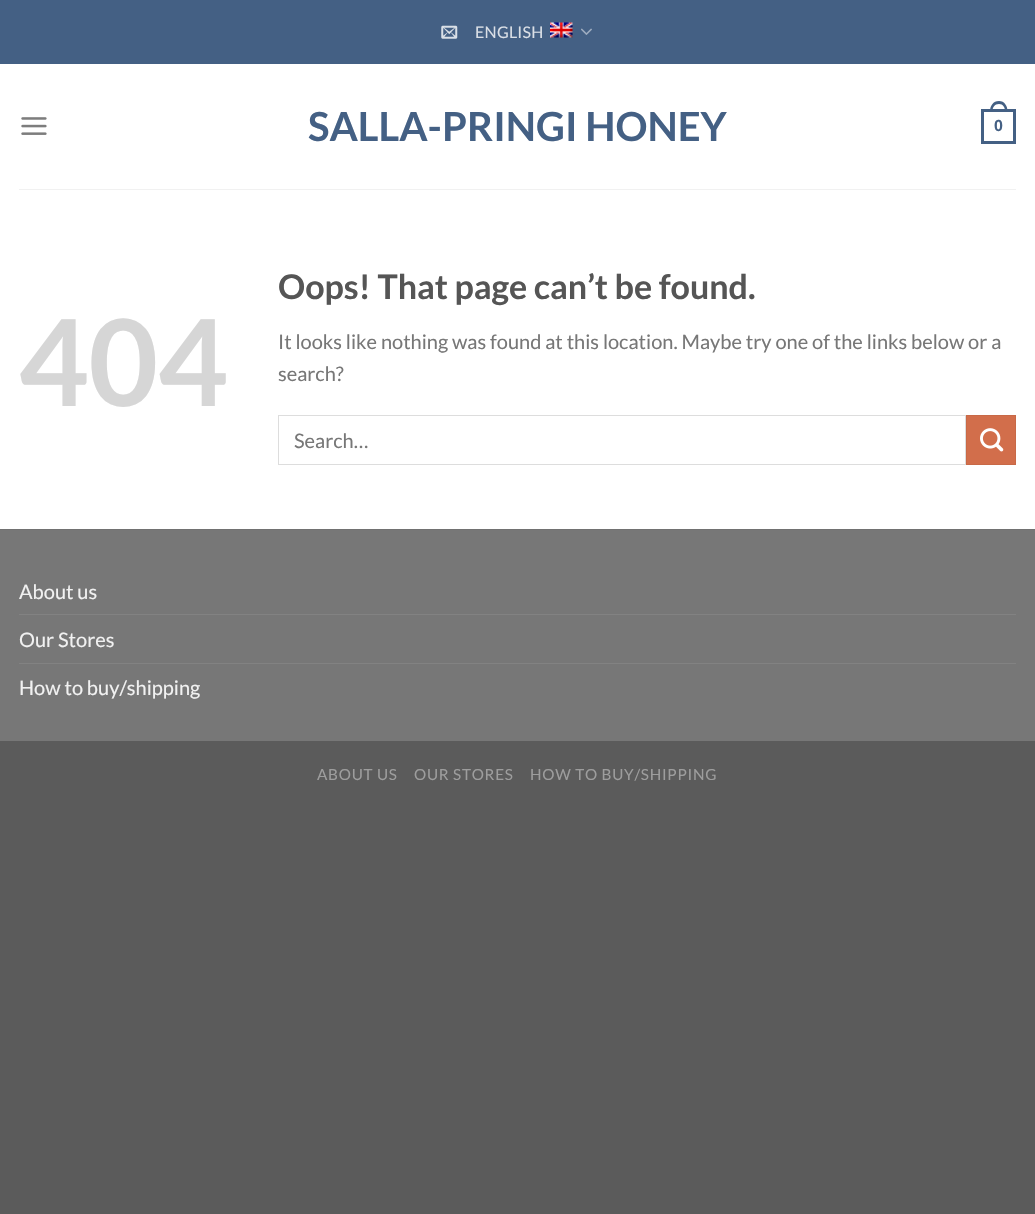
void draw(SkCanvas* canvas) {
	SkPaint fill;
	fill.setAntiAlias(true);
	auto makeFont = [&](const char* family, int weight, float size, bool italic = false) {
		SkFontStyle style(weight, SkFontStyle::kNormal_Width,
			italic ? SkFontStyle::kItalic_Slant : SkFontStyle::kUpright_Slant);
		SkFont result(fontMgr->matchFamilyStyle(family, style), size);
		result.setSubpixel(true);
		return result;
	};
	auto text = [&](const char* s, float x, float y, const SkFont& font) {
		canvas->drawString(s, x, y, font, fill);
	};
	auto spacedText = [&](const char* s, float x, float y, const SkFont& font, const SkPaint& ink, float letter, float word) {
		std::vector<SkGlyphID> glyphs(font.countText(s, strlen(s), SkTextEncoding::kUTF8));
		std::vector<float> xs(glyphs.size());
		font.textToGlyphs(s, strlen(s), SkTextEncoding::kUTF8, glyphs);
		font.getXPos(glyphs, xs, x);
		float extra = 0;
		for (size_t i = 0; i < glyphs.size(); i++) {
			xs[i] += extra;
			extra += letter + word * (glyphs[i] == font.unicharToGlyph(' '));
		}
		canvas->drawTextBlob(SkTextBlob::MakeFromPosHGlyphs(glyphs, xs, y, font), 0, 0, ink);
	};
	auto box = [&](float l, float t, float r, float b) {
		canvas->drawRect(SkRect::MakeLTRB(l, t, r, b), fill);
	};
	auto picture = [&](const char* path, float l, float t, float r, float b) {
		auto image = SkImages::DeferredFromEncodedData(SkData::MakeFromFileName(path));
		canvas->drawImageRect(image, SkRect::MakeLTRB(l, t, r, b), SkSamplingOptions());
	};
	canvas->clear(0xFF5B5B5B);
	fill.setColor(0xFFFFFFFF);
	box(0, 64, 1035, 529);
	fill.setColor(0xFF446084);
	box(0, 0, 1035, 64);
	picture("image0.png", 441, 25, 458, 39);
	picture("image1.png", 550, 22, 573, 38);
	picture("image2.png", 581, 28, 592, 35);
	picture("image3.png", 21, 117, 47, 135);
	fill.setStyle(SkPaint::kStroke_Style);
	fill.setStrokeWidth(3);
	canvas->drawRect(SkRect::MakeLTRB(982.5f, 110.5f, 1014.5f, 142.5f), fill);
	fill.setStyle(SkPaint::kFill_Style);
	canvas->drawPath(SkPathBuilder(SkPathFillType::kEvenOdd).moveTo(999, 101).cubicTo(1004.5f, 101, 1007.5f, 106, 1007.5f, 111).lineTo(990, 111).cubicTo(990, 106, 993, 101, 999, 101).close().moveTo(999, 104).cubicTo(1003, 104, 1005, 107.5f, 1005, 111).lineTo(992.5f, 111).cubicTo(992.5f, 107.5f, 994.5f, 104, 999, 104).close().detach(), fill);
	fill.setColor(0xFFF1F1F1);
	box(19, 189, 1016, 190);
	fill.setStyle(SkPaint::kStroke_Style);
	fill.setStrokeWidth(1);
	fill.setColor(0xFFDDDDDD);
	canvas->drawRect(SkRect::MakeLTRB(278.5f, 415.5f, 965.5f, 464.5f), fill);
	fill.setStyle(SkPaint::kFill_Style);
	fill.setColor(0xFFD26E4B);
	canvas->drawRect(SkRect::MakeLTRB(966.5f, 415.5f, 1015.5f, 464.5f), fill);
	fill.setStyle(SkPaint::kStroke_Style);
	fill.setColor(0xFFC86947);
	canvas->drawRect(SkRect::MakeLTRB(966.5f, 415.5f, 1015.5f, 464.5f), fill);
	picture("image4.png", 980, 428, 1004, 452);
	fill.setStyle(SkPaint::kFill_Style);
	fill.setColor(0xFF777777);
	box(0, 530, 1035, 741);
	fill.setColor(0xFF717171);
	box(0, 529, 1035, 530);
	fill.setColor(0xFF828282);
	box(19, 614, 1016, 615);
	box(19, 663, 1016, 664);
	auto font1 = makeFont("Lato", 400, 16);
	fill.setColor(0xFFDADFE6);
	spacedText("ENGLISH", 475, 38, font1, fill, 0.25f, 0);
	auto font2 = makeFont("Lato", 700, 40);
	fill.setColor(0xFF446084);
	text("SALLA-PRINGI HONEY", 308, 141, font2);
	auto font3 = makeFont("Liberation Sans", 700, 16);
	text("0", 994, 131, font3);
	auto font4 = makeFont("Lato", 700, 120);
	fill.setColor(0xFFD6D6D6);
	text("404", 19, 406, font4);
	auto font5 = makeFont("Lato", 700, 34);
	fill.setColor(0xFF555555);
	text("Oops! That page can’t be found.", 278, 299, font5);
	auto font6 = makeFont("Lato", 400, 20);
	fill.setColor(0xFF777777);
	text("It looks like nothing was found at this location. Maybe try one of the links below or a", 278, 349, font6);
	text("search?", 278, 381, font6);
	text("Search…", 294, 448, font6);
	fill.setColor(0xFFF1F1F1);
	text("About us", 19, 599, font6);
	text("Our Stores", 19, 647, font6);
	text("How to buy/shipping", 19, 695, font6);
	auto font7 = makeFont("Lato", 400, 15.25f);
	fill.setColor(0xFF9D9D9D);
	spacedText("ABOUT US", 317, 780, font7, fill, 0.75f, 0);
	spacedText("OUR STORES", 414, 780, font7, fill, 0.75f, 0);
	spacedText("HOW TO BUY/SHIPPING", 530, 780, font7, fill, 0.75f, 0);
}
